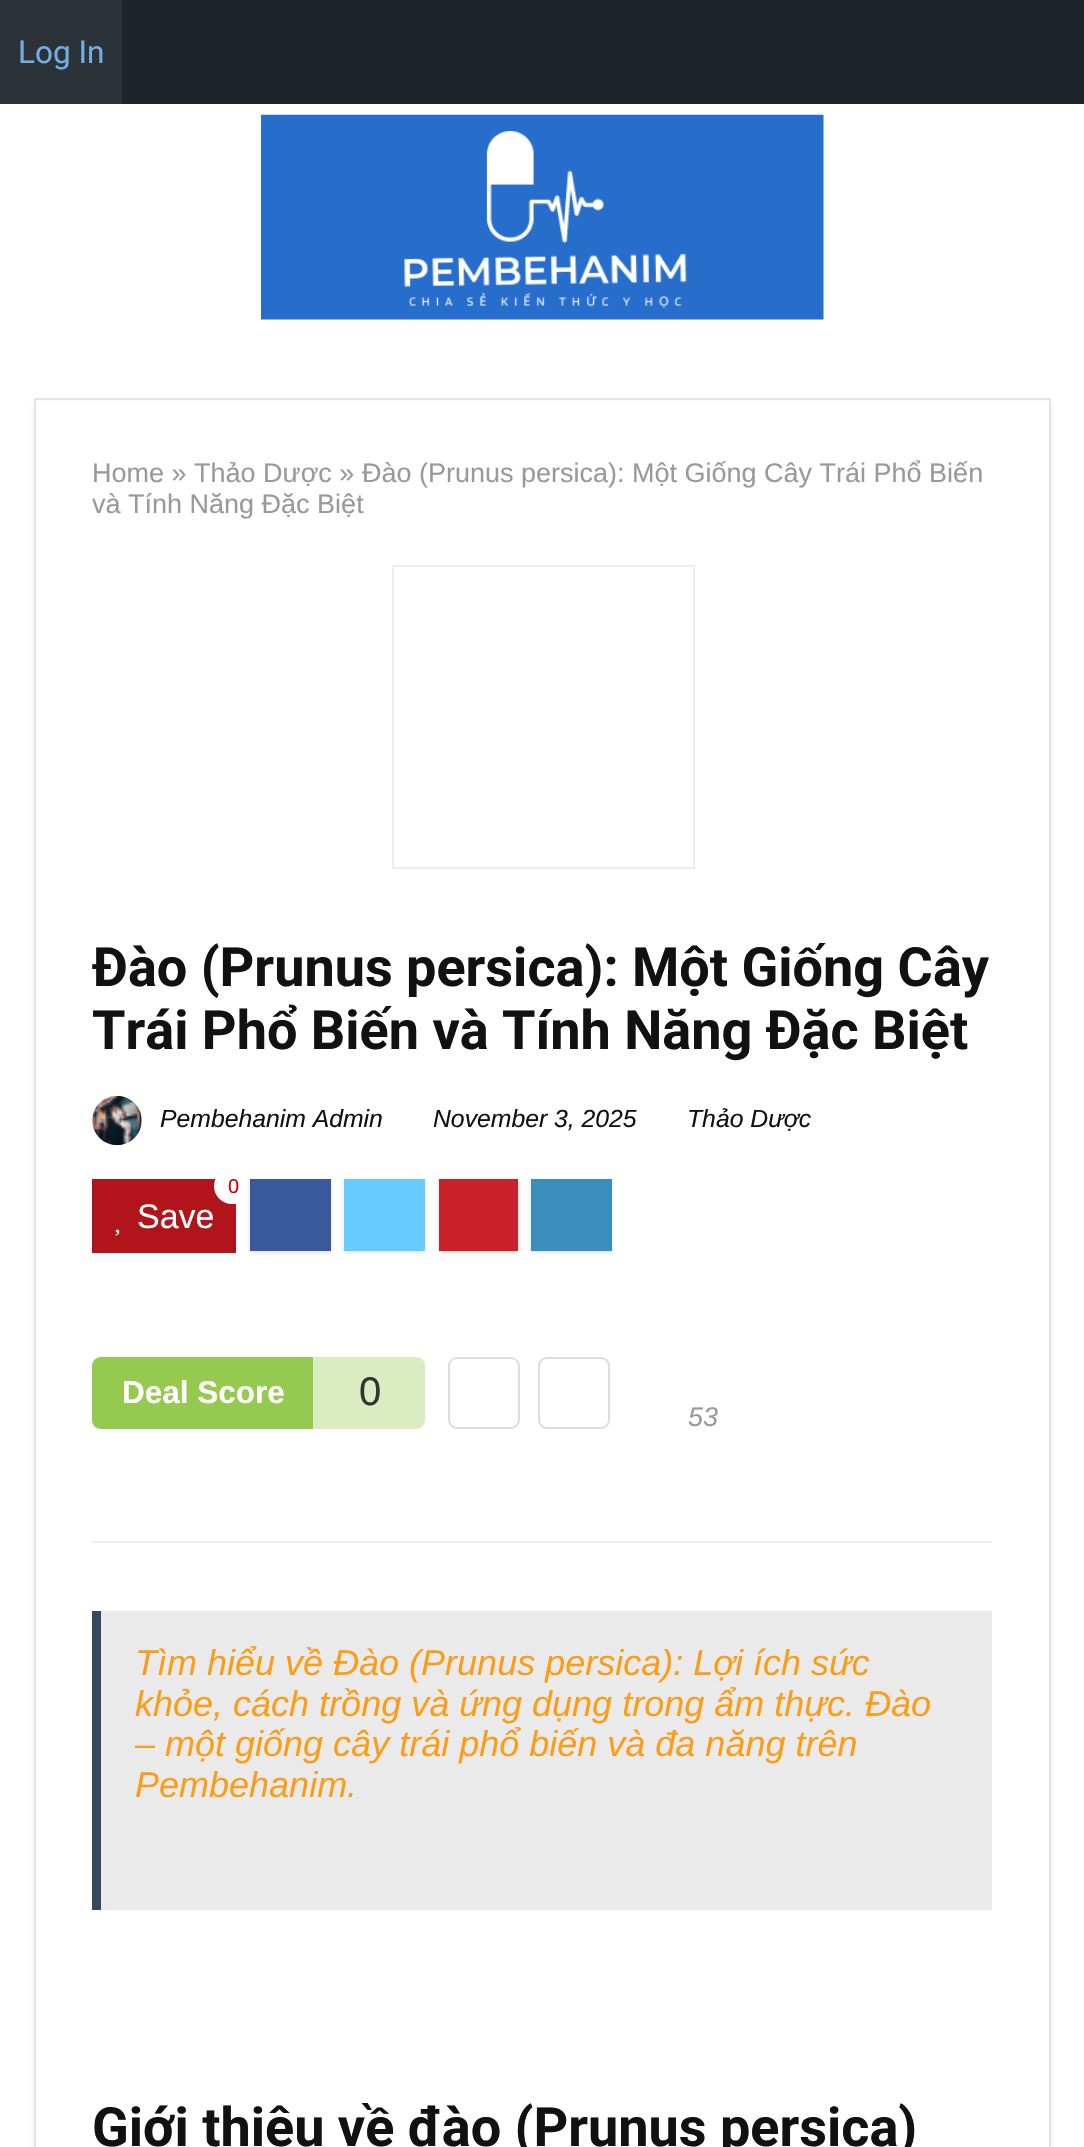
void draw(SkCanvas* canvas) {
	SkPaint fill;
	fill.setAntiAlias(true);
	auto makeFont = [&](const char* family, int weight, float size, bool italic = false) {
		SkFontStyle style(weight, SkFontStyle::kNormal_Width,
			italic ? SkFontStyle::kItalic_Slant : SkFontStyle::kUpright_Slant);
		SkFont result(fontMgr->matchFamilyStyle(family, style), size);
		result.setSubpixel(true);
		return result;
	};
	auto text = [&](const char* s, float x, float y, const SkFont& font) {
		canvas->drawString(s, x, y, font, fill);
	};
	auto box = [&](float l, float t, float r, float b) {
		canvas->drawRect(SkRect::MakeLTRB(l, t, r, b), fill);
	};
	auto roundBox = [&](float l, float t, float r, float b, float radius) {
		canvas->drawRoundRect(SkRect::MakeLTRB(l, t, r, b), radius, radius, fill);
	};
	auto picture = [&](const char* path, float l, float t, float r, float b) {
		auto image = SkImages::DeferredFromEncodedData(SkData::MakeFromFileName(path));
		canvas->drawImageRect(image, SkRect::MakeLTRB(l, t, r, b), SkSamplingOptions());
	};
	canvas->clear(0xFFFFFFFF);
	fill.setColor(0xFF1D2327);
	box(122, 0, 1084, 104);
	fill.setColor(0xFF2C3338);
	box(0, 0, 122, 104);
	picture("image0.png", 261, 114, 824, 320);
	fill.setColor(0xFFECECEC);
	fill.setMaskFilter(SkMaskFilter::MakeBlur(kNormal_SkBlurStyle, 2));
	canvas->drawRect(SkRect::MakeLTRB(34, 403, 1051, 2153), fill);
	fill.setMaskFilter(nullptr);
	fill.setColor(0xFFFFFFFF);
	box(36, 401, 1049, 2147);
	fill.setStyle(SkPaint::kStroke_Style);
	fill.setStrokeWidth(2);
	fill.setColor(0xFFE3E3E3);
	canvas->drawRect(SkRect::MakeLTRB(35, 399, 1050, 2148), fill);
	fill.setColor(0xFFEEEEEE);
	canvas->drawRect(SkRect::MakeLTRB(393, 566, 694, 868), fill);
	picture("image1.png", 92, 1095, 142, 1146);
	fill.setStyle(SkPaint::kFill_Style);
	fill.setColor(0xFFB1141A);
	box(92, 1179, 236, 1253);
	canvas->save();
	canvas->clipRect(SkRect::MakeLTRB(92, 1179, 992, 1267));
	fill.setColor(0xFFFFFFFF);
	roundBox(214, 1168, 252, 1204, 18);
	canvas->restore();
	picture("image2.png", 115, 1229, 120, 1236);
	fill.setColor(0xFFE4E4E4);
	fill.setMaskFilter(SkMaskFilter::MakeBlur(kNormal_SkBlurStyle, 2));
	canvas->drawRect(SkRect::MakeLTRB(250, 1181, 331, 1253), fill);
	fill.setMaskFilter(nullptr);
	fill.setColor(0xFF39599F);
	box(250, 1179, 331, 1251);
	fill.setColor(0xFFE4E4E4);
	fill.setMaskFilter(SkMaskFilter::MakeBlur(kNormal_SkBlurStyle, 2));
	canvas->drawRect(SkRect::MakeLTRB(344, 1181, 425, 1253), fill);
	fill.setMaskFilter(nullptr);
	fill.setColor(0xFF66CCFF);
	box(344, 1179, 425, 1251);
	fill.setColor(0xFFE4E4E4);
	fill.setMaskFilter(SkMaskFilter::MakeBlur(kNormal_SkBlurStyle, 2));
	canvas->drawRect(SkRect::MakeLTRB(439, 1181, 518, 1253), fill);
	fill.setMaskFilter(nullptr);
	fill.setColor(0xFFCA212A);
	box(439, 1179, 518, 1251);
	fill.setColor(0xFFE4E4E4);
	fill.setMaskFilter(SkMaskFilter::MakeBlur(kNormal_SkBlurStyle, 2));
	canvas->drawRect(SkRect::MakeLTRB(531, 1181, 612, 1253), fill);
	fill.setMaskFilter(nullptr);
	fill.setColor(0xFF3B8DBD);
	box(531, 1179, 612, 1251);
	fill.setColor(0xFFEEEEEE);
	box(92, 1541, 992, 1543);
	fill.setColor(0xFF96CA4E);
	canvas->drawPath(SkPathBuilder().moveTo(101, 1357).lineTo(313, 1357).lineTo(313, 1429).lineTo(101, 1429).cubicTo(96, 1429, 92, 1425, 92, 1420).lineTo(92, 1366).cubicTo(92, 1361, 96, 1357, 101, 1357).close().detach(), fill);
	fill.setColor(0xFFDAECC2);
	canvas->drawPath(SkPathBuilder().moveTo(313, 1357).lineTo(416, 1357).cubicTo(421, 1357, 425, 1361, 425, 1366).lineTo(425, 1420).cubicTo(425, 1425, 421, 1429, 416, 1429).lineTo(313, 1429).close().detach(), fill);
	fill.setStyle(SkPaint::kStroke_Style);
	fill.setColor(0xFFDCDDDE);
	canvas->drawRoundRect(SkRect::MakeLTRB(449, 1358, 519, 1428), 8, 8, fill);
	canvas->drawRoundRect(SkRect::MakeLTRB(539, 1358, 609, 1428), 8, 8, fill);
	fill.setStyle(SkPaint::kFill_Style);
	fill.setColor(0xFFEAEAEA);
	box(101, 1611, 992, 1910);
	fill.setColor(0xFF34495E);
	box(92, 1611, 101, 1910);
	auto font1 = makeFont("Roboto", 400, 31.5f);
	fill.setColor(0xFF72AEE6);
	text("Log In", 18, 63, font1);
	auto font2 = makeFont("Liberation Sans", 400, 27);
	fill.setColor(0xFF999999);
	text("Home » Thảo Dược » Đào (Prunus persica): Một Giống Cây Trái Phổ Biến", 92, 482, font2);
	text("và Tính Năng Đặc Biệt", 92, 513, font2);
	auto font3 = makeFont("Roboto", 700, 54);
	fill.setColor(0xFF111111);
	text("Đào (Prunus persica): Một Giống Cây", 92, 986, font3);
	text("Trái Phổ Biến và Tính Năng Đặc Biệt", 92, 1049, font3);
	auto font4 = makeFont("Liberation Sans", 400, 24.75f, true);
	text("Pembehanim Admin", 160, 1127, font4);
	text("November 3, 2025", 433, 1127, font4);
	text("Thảo Dược", 687, 1127, font4);
	auto font5 = makeFont("Liberation Sans", 400, 20);
	fill.setColor(0xFFCC0000);
	text("0", 228, 1193, font5);
	auto font6 = makeFont("Liberation Sans", 400, 34);
	fill.setColor(0xFFFFFFFF);
	text("Save", 137, 1228, font6);
	auto font7 = makeFont("Liberation Sans", 700, 31.5f);
	text("Deal Score", 122, 1403, font7);
	auto font8 = makeFont("Liberation Sans", 400, 40);
	fill.setColor(0xFF333333);
	text("0", 359, 1405, font8);
	auto font9 = makeFont("Liberation Sans", 400, 27, true);
	fill.setColor(0xFF999999);
	text("53", 688, 1426, font9);
	auto font10 = makeFont("Liberation Sans", 400, 36, true);
	fill.setColor(0xFFFA9E19);
	text("Tìm hiểu về Đào (Prunus persica): Lợi ích sức", 135, 1675, font10);
	text("khỏe, cách trồng và ứng dụng trong ẩm thực. Đào", 135, 1716, font10);
	text("– một giống cây trái phổ biến và đa năng trên", 135, 1756, font10);
	text("Pembehanim.", 135, 1797, font10);
	fill.setColor(0xFF111111);
	text("Giới thiệu về đào (Prunus persica)", 92, 2146, font3);
}
